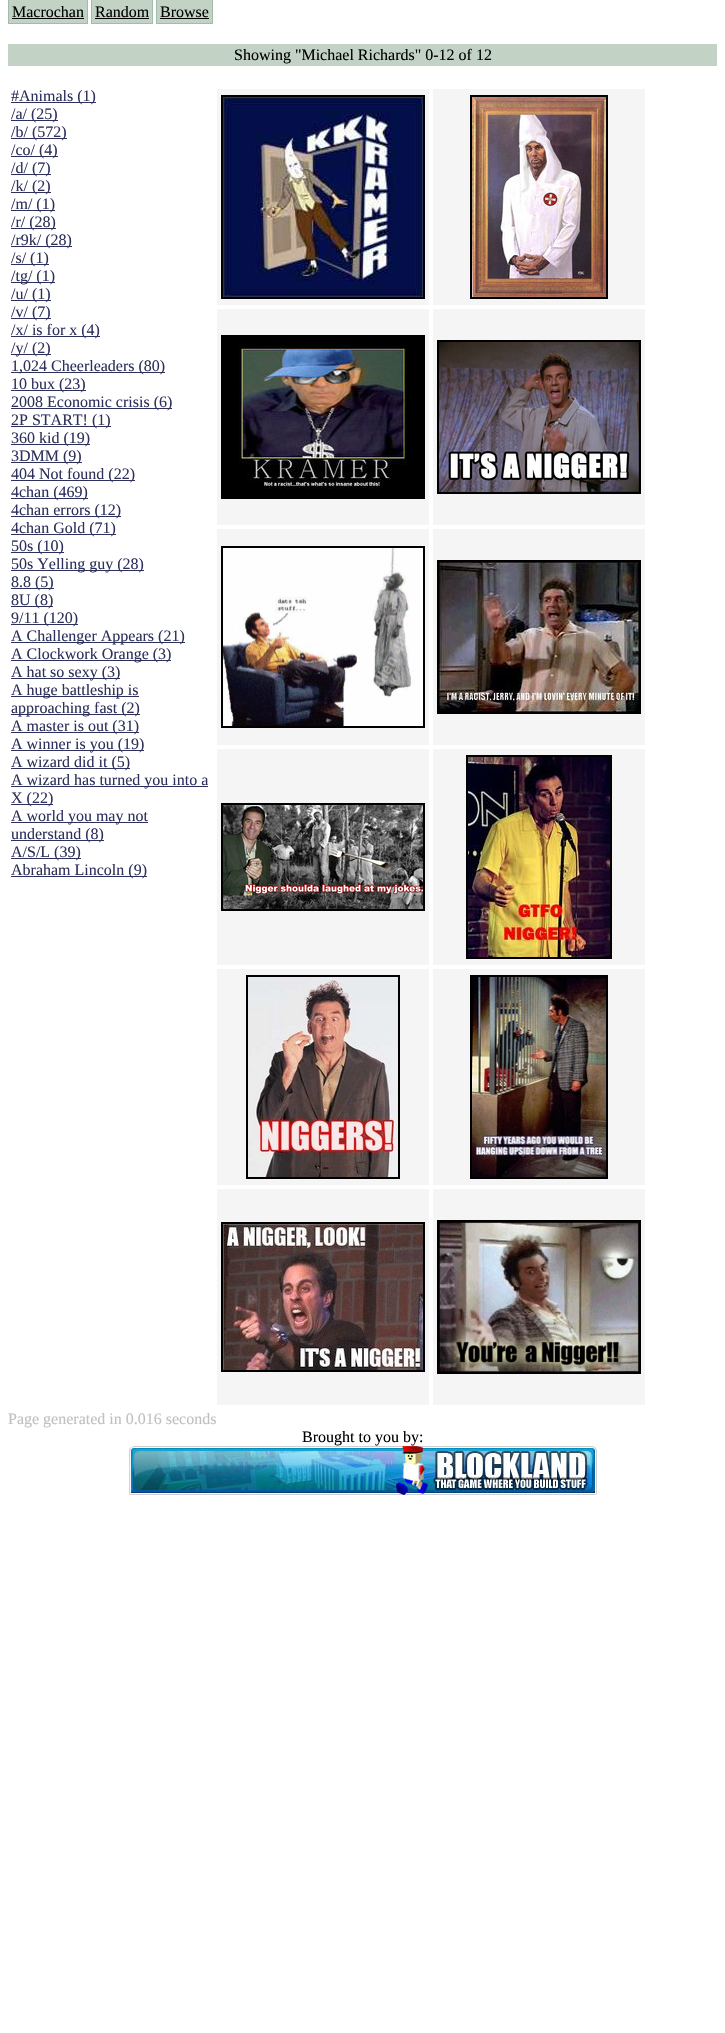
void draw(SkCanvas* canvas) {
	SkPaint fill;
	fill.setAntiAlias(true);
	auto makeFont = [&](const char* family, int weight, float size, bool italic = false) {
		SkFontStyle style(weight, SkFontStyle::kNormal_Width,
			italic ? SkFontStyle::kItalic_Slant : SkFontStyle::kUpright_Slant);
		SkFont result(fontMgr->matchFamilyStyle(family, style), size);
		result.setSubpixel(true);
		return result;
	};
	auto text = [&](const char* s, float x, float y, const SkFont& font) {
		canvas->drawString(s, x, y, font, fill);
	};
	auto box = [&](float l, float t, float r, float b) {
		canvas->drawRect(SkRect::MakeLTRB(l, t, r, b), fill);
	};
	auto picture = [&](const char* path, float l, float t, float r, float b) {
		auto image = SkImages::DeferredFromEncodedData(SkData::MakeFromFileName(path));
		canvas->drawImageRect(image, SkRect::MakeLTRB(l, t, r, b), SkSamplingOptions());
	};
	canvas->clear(0xFFFFFFFF);
	fill.setColor(0xFFC2D3C5);
	canvas->drawRect(SkRect::MakeLTRB(8.5f, -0.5f, 87.5f, 23.5f), fill);
	fill.setStyle(SkPaint::kStroke_Style);
	fill.setStrokeWidth(1);
	fill.setColor(0xFFA3BCA7);
	canvas->drawRect(SkRect::MakeLTRB(8.5f, -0.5f, 87.5f, 23.5f), fill);
	fill.setStyle(SkPaint::kFill_Style);
	fill.setColor(0xFF000000);
	box(12, 18, 84, 19);
	fill.setColor(0xFFC2D3C5);
	canvas->drawRect(SkRect::MakeLTRB(91.5f, -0.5f, 152.5f, 23.5f), fill);
	fill.setStyle(SkPaint::kStroke_Style);
	fill.setColor(0xFFA3BCA7);
	canvas->drawRect(SkRect::MakeLTRB(91.5f, -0.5f, 152.5f, 23.5f), fill);
	fill.setStyle(SkPaint::kFill_Style);
	fill.setColor(0xFF000000);
	box(95, 18, 149, 19);
	fill.setColor(0xFFC2D3C5);
	canvas->drawRect(SkRect::MakeLTRB(156.5f, -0.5f, 212.5f, 23.5f), fill);
	fill.setStyle(SkPaint::kStroke_Style);
	fill.setColor(0xFFA3BCA7);
	canvas->drawRect(SkRect::MakeLTRB(156.5f, -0.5f, 212.5f, 23.5f), fill);
	fill.setStyle(SkPaint::kFill_Style);
	fill.setColor(0xFF000000);
	box(160, 18, 209, 19);
	fill.setColor(0xFFC2D3C5);
	box(8, 44, 717, 66);
	fill.setColor(0xFF2D305B);
	box(11, 102, 96, 103);
	box(11, 120, 58, 121);
	box(11, 138, 67, 139);
	box(11, 156, 58, 157);
	box(11, 174, 51, 175);
	box(11, 192, 51, 193);
	box(11, 210, 55, 211);
	box(11, 228, 56, 229);
	box(11, 246, 72, 247);
	box(11, 264, 49, 265);
	box(11, 282, 55, 283);
	box(11, 300, 51, 301);
	box(11, 318, 51, 319);
	box(11, 336, 100, 337);
	box(11, 354, 51, 355);
	box(11, 372, 165, 373);
	box(11, 390, 86, 391);
	box(11, 408, 172, 409);
	box(11, 426, 111, 427);
	box(11, 444, 90, 445);
	box(11, 462, 82, 463);
	box(11, 480, 135, 481);
	box(11, 498, 88, 499);
	box(11, 516, 121, 517);
	box(11, 534, 116, 535);
	box(11, 552, 64, 553);
	box(11, 570, 144, 571);
	box(11, 588, 54, 589);
	box(11, 606, 53, 607);
	box(11, 624, 78, 625);
	box(11, 642, 185, 643);
	box(11, 660, 171, 661);
	box(11, 678, 120, 679);
	box(11, 696, 139, 697);
	box(11, 714, 140, 715);
	box(11, 732, 139, 733);
	box(11, 750, 144, 751);
	box(11, 768, 130, 769);
	box(11, 786, 208, 787);
	box(11, 804, 53, 805);
	box(11, 822, 148, 823);
	box(11, 840, 104, 841);
	box(11, 858, 81, 859);
	box(11, 876, 147, 877);
	fill.setColor(0xFFF5F5F5);
	box(217, 89, 429, 305);
	fill.setStyle(SkPaint::kStroke_Style);
	fill.setStrokeWidth(2);
	fill.setColor(0xFF000000);
	canvas->drawRect(SkRect::MakeLTRB(222, 96, 424, 298), fill);
	picture("image0.png", 223, 97, 423, 297);
	fill.setStyle(SkPaint::kFill_Style);
	fill.setColor(0xFFF5F5F5);
	box(433, 89, 645, 305);
	fill.setStyle(SkPaint::kStroke_Style);
	fill.setColor(0xFF000000);
	canvas->drawRect(SkRect::MakeLTRB(471, 96, 607, 298), fill);
	picture("image1.png", 472, 97, 606, 297);
	fill.setStyle(SkPaint::kFill_Style);
	fill.setColor(0xFFF5F5F5);
	box(217, 309, 429, 525);
	fill.setStyle(SkPaint::kStroke_Style);
	fill.setColor(0xFF000000);
	canvas->drawRect(SkRect::MakeLTRB(222, 336, 424, 498), fill);
	picture("image2.png", 223, 337, 423, 497);
	fill.setStyle(SkPaint::kFill_Style);
	fill.setColor(0xFFF5F5F5);
	box(433, 309, 645, 525);
	fill.setStyle(SkPaint::kStroke_Style);
	fill.setColor(0xFF000000);
	canvas->drawRect(SkRect::MakeLTRB(438, 341, 640, 493), fill);
	picture("image3.png", 439, 342, 639, 492);
	fill.setStyle(SkPaint::kFill_Style);
	fill.setColor(0xFFF5F5F5);
	box(217, 529, 429, 745);
	fill.setStyle(SkPaint::kStroke_Style);
	fill.setColor(0xFF000000);
	canvas->drawRect(SkRect::MakeLTRB(222, 547, 424, 727), fill);
	picture("image4.png", 223, 548, 423, 726);
	fill.setStyle(SkPaint::kFill_Style);
	fill.setColor(0xFFF5F5F5);
	box(433, 529, 645, 745);
	fill.setStyle(SkPaint::kStroke_Style);
	fill.setColor(0xFF000000);
	canvas->drawRect(SkRect::MakeLTRB(438, 561, 640, 713), fill);
	picture("image5.png", 439, 562, 639, 712);
	fill.setStyle(SkPaint::kFill_Style);
	fill.setColor(0xFFF5F5F5);
	box(217, 749, 429, 965);
	fill.setStyle(SkPaint::kStroke_Style);
	fill.setColor(0xFF000000);
	canvas->drawRect(SkRect::MakeLTRB(222, 804, 424, 910), fill);
	picture("image6.png", 223, 805, 423, 909);
	fill.setStyle(SkPaint::kFill_Style);
	fill.setColor(0xFFF5F5F5);
	box(433, 749, 645, 965);
	fill.setStyle(SkPaint::kStroke_Style);
	fill.setColor(0xFF000000);
	canvas->drawRect(SkRect::MakeLTRB(467, 756, 611, 958), fill);
	picture("image7.png", 468, 757, 610, 957);
	fill.setStyle(SkPaint::kFill_Style);
	fill.setColor(0xFFF5F5F5);
	box(217, 969, 429, 1185);
	fill.setStyle(SkPaint::kStroke_Style);
	fill.setColor(0xFF000000);
	canvas->drawRect(SkRect::MakeLTRB(247, 976, 399, 1178), fill);
	picture("image8.png", 248, 977, 398, 1177);
	fill.setStyle(SkPaint::kFill_Style);
	fill.setColor(0xFFF5F5F5);
	box(433, 969, 645, 1185);
	fill.setStyle(SkPaint::kStroke_Style);
	fill.setColor(0xFF000000);
	canvas->drawRect(SkRect::MakeLTRB(471, 976, 607, 1178), fill);
	picture("image9.png", 472, 977, 606, 1177);
	fill.setStyle(SkPaint::kFill_Style);
	fill.setColor(0xFFF5F5F5);
	box(217, 1189, 429, 1405);
	fill.setStyle(SkPaint::kStroke_Style);
	fill.setColor(0xFF000000);
	canvas->drawRect(SkRect::MakeLTRB(222, 1223, 424, 1371), fill);
	picture("image10.png", 223, 1224, 423, 1370);
	fill.setStyle(SkPaint::kFill_Style);
	fill.setColor(0xFFF5F5F5);
	box(433, 1189, 645, 1405);
	fill.setStyle(SkPaint::kStroke_Style);
	fill.setColor(0xFF000000);
	canvas->drawRect(SkRect::MakeLTRB(438, 1221, 640, 1373), fill);
	picture("image11.png", 439, 1222, 639, 1372);
	picture("image12.png", 129, 1446, 597, 1495);
	auto font1 = makeFont("Liberation Serif", 400, 16);
	fill.setStyle(SkPaint::kFill_Style);
	text("Macrochan", 12, 17, font1);
	text("Random", 95, 17, font1);
	text("Browse", 160, 17, font1);
	text("Showing \"Michael Richards\" 0-12 of 12", 234, 60, font1);
	fill.setColor(0xFF2D305B);
	text("#Animals (1)", 11, 101, font1);
	text("/a/ (25)", 11, 119, font1);
	text("/b/ (572)", 11, 137, font1);
	text("/co/ (4)", 11, 155, font1);
	text("/d/ (7)", 11, 173, font1);
	text("/k/ (2)", 11, 191, font1);
	text("/m/ (1)", 11, 209, font1);
	text("/r/ (28)", 11, 227, font1);
	text("/r9k/ (28)", 11, 245, font1);
	text("/s/ (1)", 11, 263, font1);
	text("/tg/ (1)", 11, 281, font1);
	text("/u/ (1)", 11, 299, font1);
	text("/v/ (7)", 11, 317, font1);
	text("/x/ is for x (4)", 11, 335, font1);
	text("/y/ (2)", 11, 353, font1);
	text("1,024 Cheerleaders (80)", 11, 371, font1);
	text("10 bux (23)", 11, 389, font1);
	text("2008 Economic crisis (6)", 11, 407, font1);
	text("2P START! (1)", 11, 425, font1);
	text("360 kid (19)", 11, 443, font1);
	text("3DMM (9)", 11, 461, font1);
	text("404 Not found (22)", 11, 479, font1);
	text("4chan (469)", 11, 497, font1);
	text("4chan errors (12)", 11, 515, font1);
	text("4chan Gold (71)", 11, 533, font1);
	text("50s (10)", 11, 551, font1);
	text("50s Yelling guy (28)", 11, 569, font1);
	text("8.8 (5)", 11, 587, font1);
	text("8U (8)", 11, 605, font1);
	text("9/11 (120)", 11, 623, font1);
	text("A Challenger Appears (21)", 11, 641, font1);
	text("A Clockwork Orange (3)", 11, 659, font1);
	text("A hat so sexy (3)", 11, 677, font1);
	text("A huge battleship is", 11, 695, font1);
	text("approaching fast (2)", 11, 713, font1);
	text("A master is out (31)", 11, 731, font1);
	text("A winner is you (19)", 11, 749, font1);
	text("A wizard did it (5)", 11, 767, font1);
	text("A wizard has turned you into a", 11, 785, font1);
	text("X (22)", 11, 803, font1);
	text("A world you may not", 11, 821, font1);
	text("understand (8)", 11, 839, font1);
	text("A/S/L (39)", 11, 857, font1);
	text("Abraham Lincoln (9)", 11, 875, font1);
	fill.setColor(0xFFC0C0C0);
	text("Page generated in 0.016 seconds", 8, 1424, font1);
	fill.setColor(0xFF000000);
	text("Brought to you by:", 302, 1442, font1);
}
